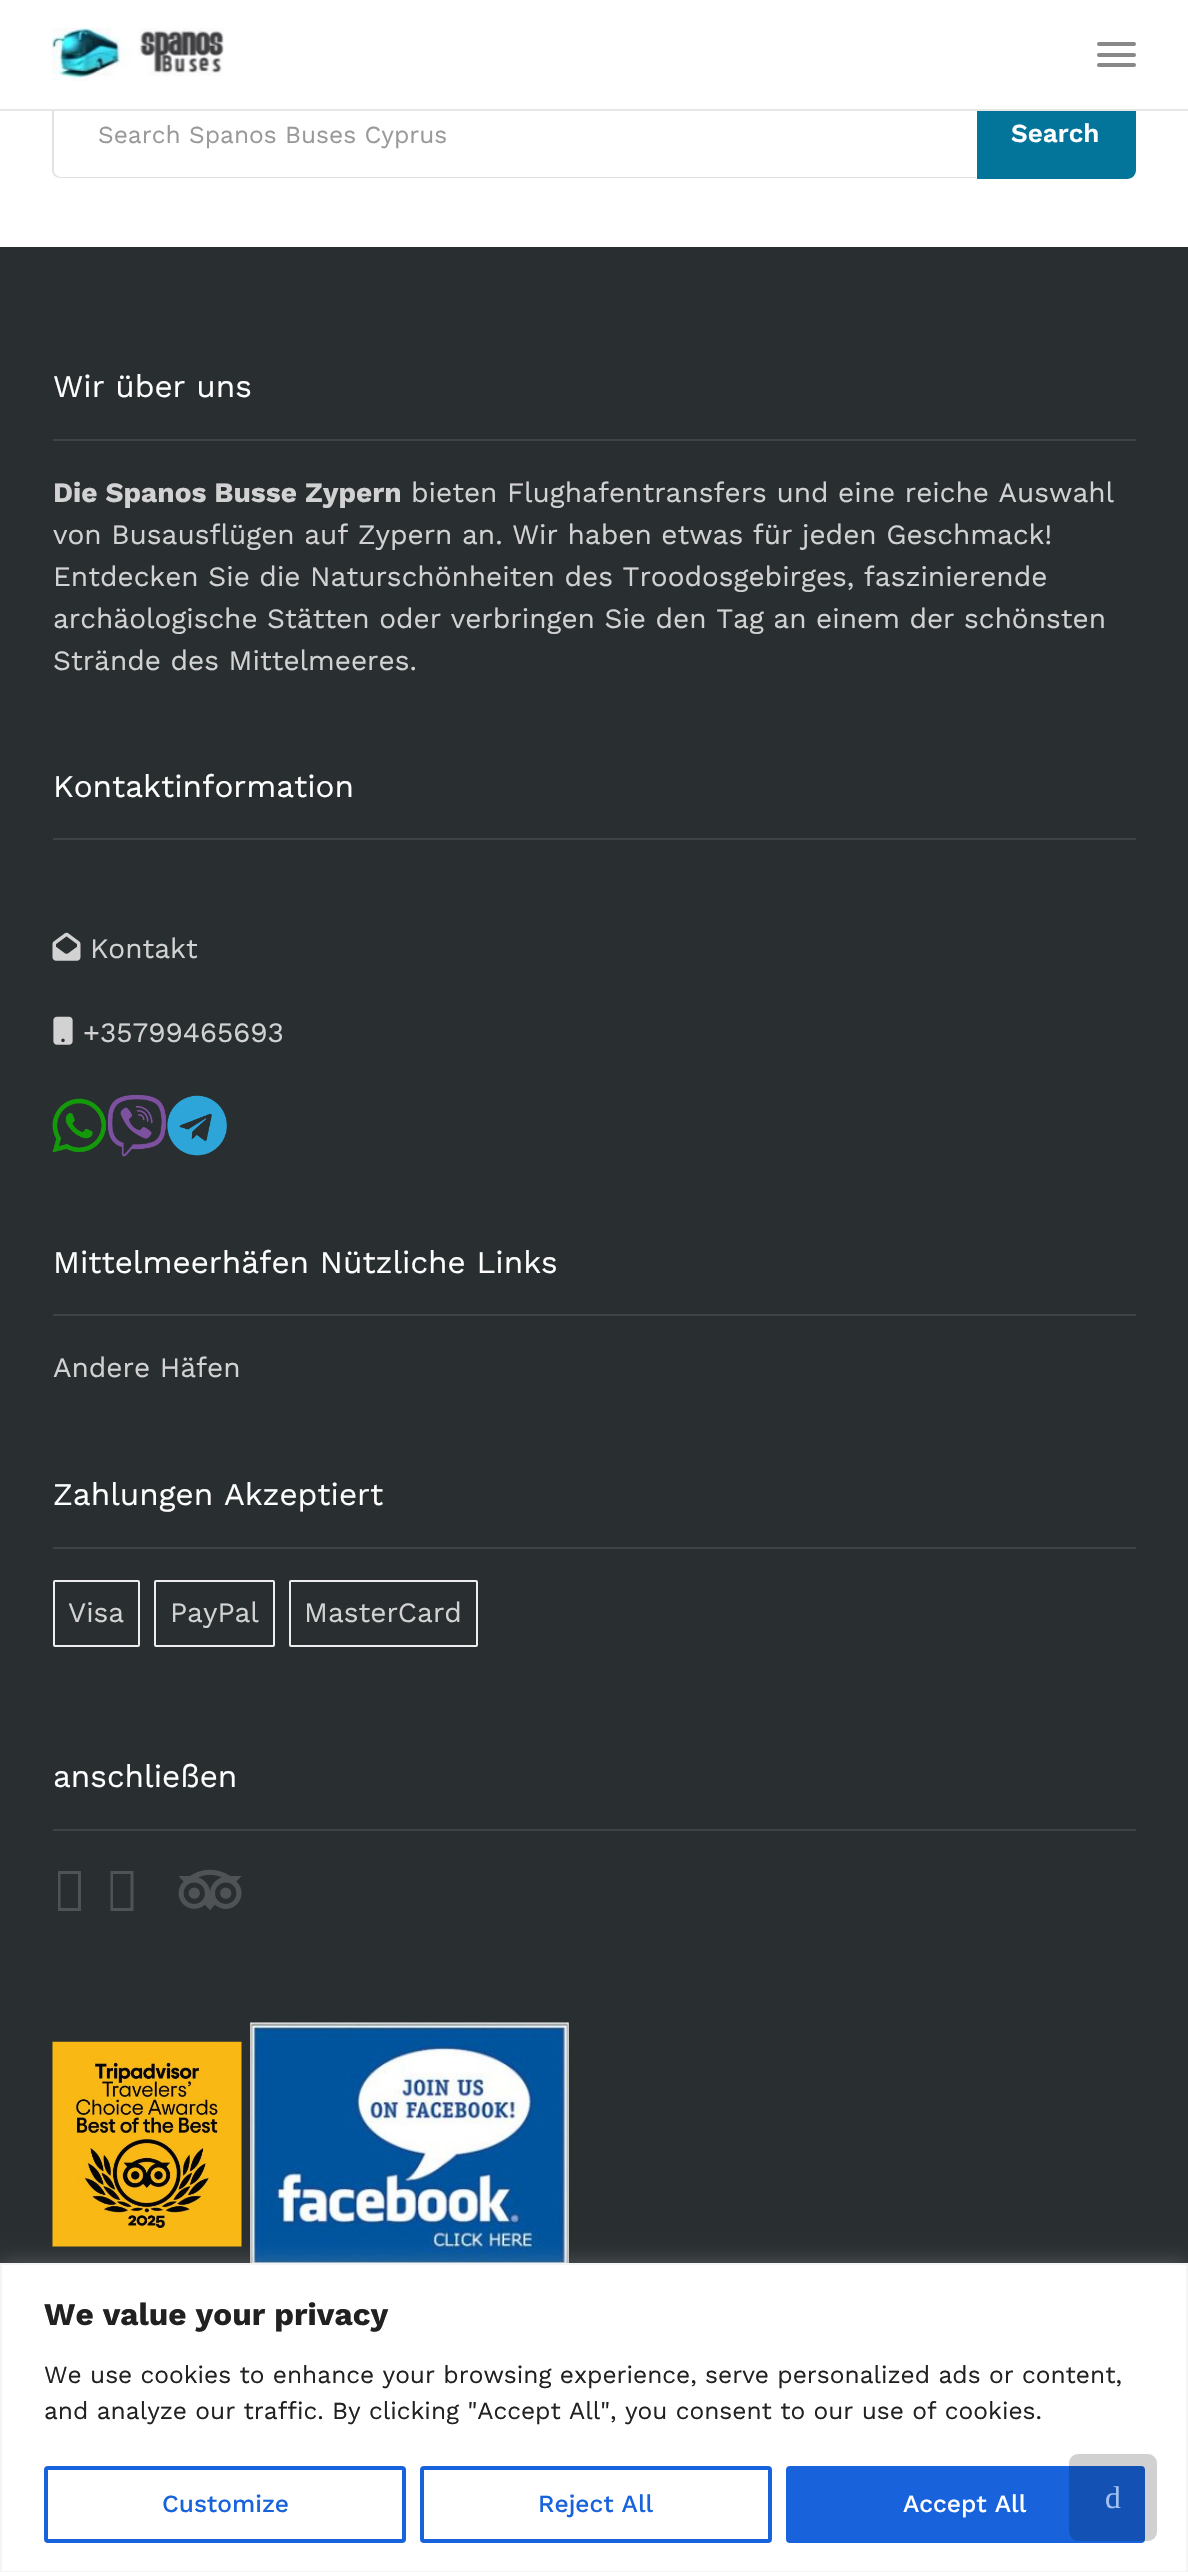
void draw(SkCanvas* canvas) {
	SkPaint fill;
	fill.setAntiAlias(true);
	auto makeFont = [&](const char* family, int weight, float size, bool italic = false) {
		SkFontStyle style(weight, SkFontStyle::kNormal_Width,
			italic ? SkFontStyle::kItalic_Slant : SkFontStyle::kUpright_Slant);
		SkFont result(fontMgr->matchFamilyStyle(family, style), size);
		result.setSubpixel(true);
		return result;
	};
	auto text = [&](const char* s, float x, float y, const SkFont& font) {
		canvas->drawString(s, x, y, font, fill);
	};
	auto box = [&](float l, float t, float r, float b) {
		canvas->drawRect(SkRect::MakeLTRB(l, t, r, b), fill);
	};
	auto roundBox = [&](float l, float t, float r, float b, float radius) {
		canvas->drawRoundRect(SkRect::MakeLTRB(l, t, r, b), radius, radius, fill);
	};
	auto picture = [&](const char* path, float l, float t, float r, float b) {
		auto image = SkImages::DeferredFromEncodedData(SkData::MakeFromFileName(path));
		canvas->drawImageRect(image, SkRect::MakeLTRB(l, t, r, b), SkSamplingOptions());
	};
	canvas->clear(0xFFFFFFFF);
	fill.setColor(0xFFE2E2E2);
	canvas->drawPath(SkPathBuilder(SkPathFillType::kEvenOdd).moveTo(61, 91).lineTo(976, 91).lineTo(976, 178).lineTo(61, 178).cubicTo(56, 178, 52, 175, 52, 170).lineTo(52, 100).cubicTo(52, 95, 56, 91, 61, 91).close().moveTo(61, 93).lineTo(976, 93).lineTo(976, 177).lineTo(61, 177).cubicTo(57, 177, 54, 174, 54, 170).lineTo(54, 100).cubicTo(54, 96, 57, 93, 61, 93).close().detach(), fill);
	fill.setColor(0xFF03749A);
	canvas->drawPath(SkPathBuilder().moveTo(977, 91).lineTo(1127, 91).cubicTo(1132, 91, 1136, 95, 1136, 100).lineTo(1136, 170).cubicTo(1136, 175, 1132, 179, 1127, 179).lineTo(977, 179).close().detach(), fill);
	fill.setColor(0xFFFFFFFF);
	box(52, 91, 1136, 109);
	fill.setColor(0xFFE7E7E7);
	box(0, 109, 1188, 111);
	picture("image0.png", 52, 28, 224, 81);
	fill.setColor(0xFF888888);
	roundBox(1097, 42, 1136, 46, 2);
	roundBox(1097, 53, 1136, 57, 2);
	roundBox(1097, 63, 1136, 67, 2);
	fill.setColor(0xFF292E31);
	box(0, 247, 1188, 2263);
	fill.setColor(0xFF3E4346);
	box(53, 439, 1136, 441);
	box(53, 838, 1136, 840);
	picture("image1.png", 52, 932, 81, 961);
	picture("image2.png", 53, 1016, 73, 1045);
	picture("image3.png", 52, 1095, 227, 1157);
	box(53, 1314, 1136, 1316);
	box(53, 1547, 1136, 1549);
	fill.setStyle(SkPaint::kStroke_Style);
	fill.setStrokeWidth(2);
	fill.setColor(0xFFEEEEEE);
	canvas->drawRoundRect(SkRect::MakeLTRB(54, 1581, 139, 1646), 1, 1, fill);
	canvas->drawRoundRect(SkRect::MakeLTRB(155, 1581, 274, 1646), 1, 1, fill);
	canvas->drawRoundRect(SkRect::MakeLTRB(290, 1581, 477, 1646), 1, 1, fill);
	fill.setStyle(SkPaint::kFill_Style);
	fill.setColor(0xFF3E4346);
	box(53, 1829, 1136, 1831);
	fill.setColor(0xFF4F5356);
	canvas->drawPath(SkPathBuilder().moveTo(58, 1911).lineTo(58, 1871).lineTo(81, 1871).lineTo(81, 1911).close().moveTo(60.5f, 1908).lineTo(78, 1908).lineTo(78, 1874).lineTo(60.5f, 1874).close().detach(), fill);
	canvas->drawPath(SkPathBuilder().moveTo(110.5f, 1911).lineTo(110.5f, 1871).lineTo(133.5f, 1871).lineTo(133.5f, 1911).close().moveTo(113, 1908).lineTo(130.5f, 1908).lineTo(130.5f, 1874).lineTo(113, 1874).close().detach(), fill);
	picture("image4.png", 178, 1869, 242, 1910);
	picture("image5.png", 52, 2041, 242, 2247);
	picture("image6.png", 250, 2022, 569, 2263);
	fill.setColor(0x4DACABAB);
	fill.setMaskFilter(SkMaskFilter::MakeBlur(kNormal_SkBlurStyle, 9));
	canvas->drawRect(SkRect::MakeLTRB(0, 2261, 1188, 2571), fill);
	fill.setMaskFilter(nullptr);
	fill.setColor(0xFFFFFFFF);
	canvas->drawRect(SkRect::MakeLTRB(1, 2264, 1187, 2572), fill);
	fill.setStyle(SkPaint::kStroke_Style);
	fill.setColor(0xFFF4F4F4);
	canvas->drawRect(SkRect::MakeLTRB(1, 2264, 1187, 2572), fill);
	fill.setStrokeWidth(4);
	fill.setColor(0xFF1863DC);
	canvas->drawRoundRect(SkRect::MakeLTRB(46, 2468, 404, 2541), 2, 2, fill);
	canvas->drawRoundRect(SkRect::MakeLTRB(422, 2468, 770, 2541), 2, 2, fill);
	fill.setStyle(SkPaint::kFill_Style);
	canvas->drawRoundRect(SkRect::MakeLTRB(788, 2468, 1143, 2541), 2, 2, fill);
	fill.setStyle(SkPaint::kStroke_Style);
	canvas->drawRoundRect(SkRect::MakeLTRB(788, 2468, 1143, 2541), 2, 2, fill);
	fill.setStyle(SkPaint::kFill_Style);
	fill.setColor(0x2E000000);
	roundBox(1069, 2454, 1157, 2541, 9);
	auto font1 = makeFont("Work Sans", 400, 24.5f);
	fill.setColor(0xFF999999);
	text("Search Spanos Buses Cyprus", 98, 143, font1);
	auto font2 = makeFont("Work Sans", 600, 26);
	fill.setColor(0xFFFFFFFF);
	text("Search", 1011, 142, font2);
	auto font3 = makeFont("Work Sans", 400, 31.5f);
	text("Wir über uns", 53, 397, font3);
	auto font4 = makeFont("Work Sans", 700, 28);
	fill.setColor(0xFFD2D2D2);
	text("Die Spanos Busse Zypern", 53, 502, font4);
	auto font5 = makeFont("Work Sans", 400, 28);
	text("bieten Flughafentransfers und eine reiche Auswahl", 411, 502, font5);
	text("von Busausflügen auf Zypern an. Wir haben etwas für jeden Geschmack!", 53, 544, font5);
	text("Entdecken Sie die Naturschönheiten des Troodosgebirges, faszinierende", 53, 586, font5);
	text("archäologische Stätten oder verbringen Sie den Tag an einem der schönsten", 53, 628, font5);
	text("Strände des Mittelmeeres.", 53, 670, font5);
	fill.setColor(0xFFFFFFFF);
	text("Kontaktinformation", 53, 797, font3);
	fill.setColor(0xFFD2D2D2);
	text("Kontakt", 90, 958, font5);
	text("+35799465693", 83, 1042, font5);
	fill.setColor(0xFFFFFFFF);
	text("Mittelmeerhäfen Nützliche Links", 53, 1273, font3);
	fill.setColor(0xFFD2D2D2);
	text("Andere Häfen", 53, 1377, font5);
	fill.setColor(0xFFFFFFFF);
	text("Zahlungen Akzeptiert", 53, 1505, font3);
	fill.setColor(0xFFD2D2D2);
	text("Visa", 68, 1622, font5);
	text("PayPal", 170, 1622, font5);
	text("MasterCard", 304, 1622, font5);
	fill.setColor(0xFFFFFFFF);
	text("anschließen", 53, 1787, font3);
	auto font6 = makeFont("Work Sans", 700, 31.5f);
	fill.setColor(0xFF212121);
	text("We value your privacy", 44, 2325, font6);
	text("We use cookies to enhance your browsing experience, serve personalized ads or content,", 44, 2383, font1);
	text("and analyze our traffic. By clicking \"Accept All\", you consent to our use of cookies.", 44, 2419, font1);
	auto font7 = makeFont("Work Sans", 500, 24.5f);
	fill.setColor(0xFF1863DC);
	text("Customize", 162, 2512, font7);
	text("Reject All", 538, 2512, font7);
	fill.setColor(0xFFFFFFFF);
	text("Accept All", 903, 2512, font7);
	auto font8 = makeFont("Liberation Serif", 400, 31.5f);
	fill.setColor(0xFFA3C1F1);
	text("d", 1105, 2508, font8);
}
